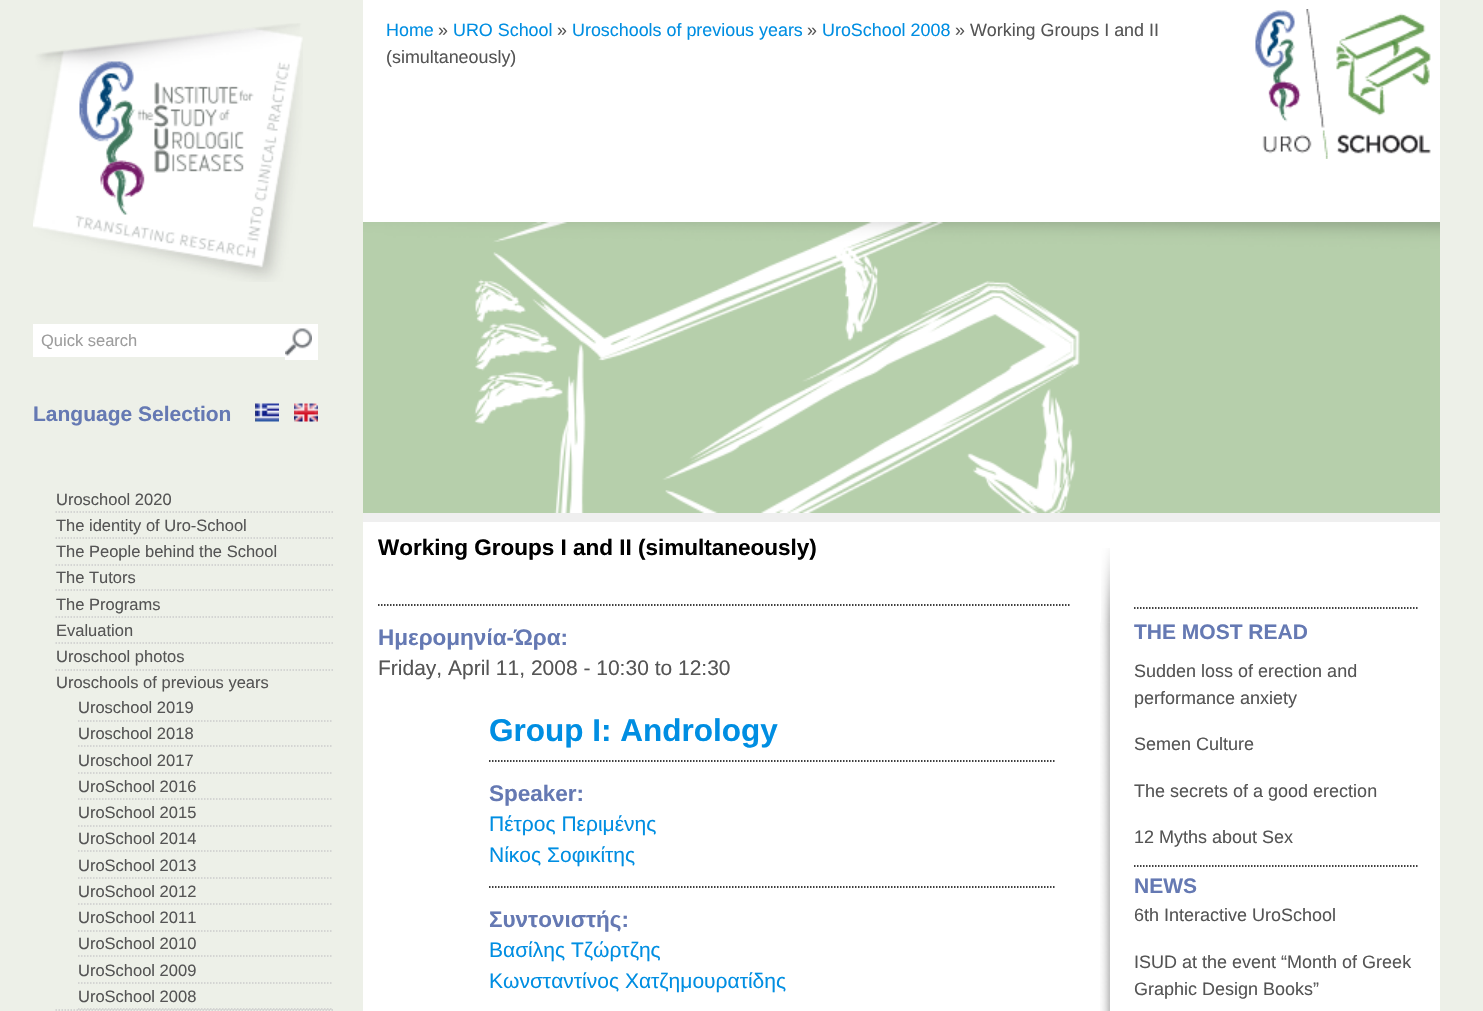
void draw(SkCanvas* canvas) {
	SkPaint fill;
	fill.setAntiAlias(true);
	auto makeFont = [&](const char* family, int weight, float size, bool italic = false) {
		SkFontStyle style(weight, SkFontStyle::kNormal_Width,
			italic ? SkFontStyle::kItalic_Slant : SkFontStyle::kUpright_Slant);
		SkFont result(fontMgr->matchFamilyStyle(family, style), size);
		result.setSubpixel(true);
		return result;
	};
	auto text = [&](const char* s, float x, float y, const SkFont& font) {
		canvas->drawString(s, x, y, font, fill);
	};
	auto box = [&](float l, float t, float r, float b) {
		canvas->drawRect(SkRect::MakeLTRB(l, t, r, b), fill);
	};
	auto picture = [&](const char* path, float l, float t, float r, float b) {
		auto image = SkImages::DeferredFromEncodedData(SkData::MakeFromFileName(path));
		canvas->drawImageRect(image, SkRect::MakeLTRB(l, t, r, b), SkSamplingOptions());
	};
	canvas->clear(0xFFEDF0E8);
	picture("image0.png", 33, 23, 303, 282);
	fill.setColor(0xFFFFFFFF);
	box(33, 324, 285, 357);
	box(285, 324, 318, 360);
	picture("image1.png", 285, 328, 312, 356);
	picture("image2.png", 255, 403, 279, 422);
	picture("image3.png", 294, 403, 318, 422);
	fill.setStyle(SkPaint::kStroke_Style);
	fill.setStrokeWidth(1.5f);
	fill.setColor(0xFFCCCCCC);
	fill.setPathEffect(SkDashPathEffect::Make({{1.5f, 1.5f}}, 0));
	canvas->drawPath(SkPathBuilder().moveTo(55.5f, 512).lineTo(333, 512).detach(), fill);
	fill.setPathEffect(nullptr);
	fill.setPathEffect(SkDashPathEffect::Make({{1.5f, 1.5f}}, 0));
	canvas->drawPath(SkPathBuilder().moveTo(55.5f, 538).lineTo(333, 538).detach(), fill);
	fill.setPathEffect(nullptr);
	fill.setPathEffect(SkDashPathEffect::Make({{1.5f, 1.5f}}, 0));
	canvas->drawPath(SkPathBuilder().moveTo(55.5f, 565).lineTo(333, 565).detach(), fill);
	fill.setPathEffect(nullptr);
	fill.setPathEffect(SkDashPathEffect::Make({{1.5f, 1.5f}}, 0));
	canvas->drawPath(SkPathBuilder().moveTo(55.5f, 590).lineTo(333, 590).detach(), fill);
	fill.setPathEffect(nullptr);
	fill.setPathEffect(SkDashPathEffect::Make({{1.5f, 1.5f}}, 0));
	canvas->drawPath(SkPathBuilder().moveTo(55.5f, 617).lineTo(333, 617).detach(), fill);
	fill.setPathEffect(nullptr);
	fill.setPathEffect(SkDashPathEffect::Make({{1.5f, 1.5f}}, 0));
	canvas->drawPath(SkPathBuilder().moveTo(55.5f, 643).lineTo(333, 643).detach(), fill);
	fill.setPathEffect(nullptr);
	fill.setPathEffect(SkDashPathEffect::Make({{1.5f, 1.5f}}, 0));
	canvas->drawPath(SkPathBuilder().moveTo(55.5f, 670).lineTo(333, 670).detach(), fill);
	fill.setPathEffect(nullptr);
	fill.setPathEffect(SkDashPathEffect::Make({{1.5f, 1.5f}}, 0));
	canvas->drawPath(SkPathBuilder().moveTo(55.5f, 1010).lineTo(333, 1010).detach(), fill);
	fill.setPathEffect(nullptr);
	fill.setPathEffect(SkDashPathEffect::Make({{1.5f, 1.5f}}, 0));
	canvas->drawPath(SkPathBuilder().moveTo(78, 721).lineTo(333, 721).detach(), fill);
	fill.setPathEffect(nullptr);
	fill.setPathEffect(SkDashPathEffect::Make({{1.5f, 1.5f}}, 0));
	canvas->drawPath(SkPathBuilder().moveTo(78, 746).lineTo(333, 746).detach(), fill);
	fill.setPathEffect(nullptr);
	fill.setPathEffect(SkDashPathEffect::Make({{1.5f, 1.5f}}, 0));
	canvas->drawPath(SkPathBuilder().moveTo(78, 773).lineTo(333, 773).detach(), fill);
	fill.setPathEffect(nullptr);
	fill.setPathEffect(SkDashPathEffect::Make({{1.5f, 1.5f}}, 0));
	canvas->drawPath(SkPathBuilder().moveTo(78, 799).lineTo(333, 799).detach(), fill);
	fill.setPathEffect(nullptr);
	fill.setPathEffect(SkDashPathEffect::Make({{1.5f, 1.5f}}, 0));
	canvas->drawPath(SkPathBuilder().moveTo(78, 826).lineTo(333, 826).detach(), fill);
	fill.setPathEffect(nullptr);
	fill.setPathEffect(SkDashPathEffect::Make({{1.5f, 1.5f}}, 0));
	canvas->drawPath(SkPathBuilder().moveTo(78, 851).lineTo(333, 851).detach(), fill);
	fill.setPathEffect(nullptr);
	fill.setPathEffect(SkDashPathEffect::Make({{1.5f, 1.5f}}, 0));
	canvas->drawPath(SkPathBuilder().moveTo(78, 878).lineTo(333, 878).detach(), fill);
	fill.setPathEffect(nullptr);
	fill.setPathEffect(SkDashPathEffect::Make({{1.5f, 1.5f}}, 0));
	canvas->drawPath(SkPathBuilder().moveTo(78, 904).lineTo(333, 904).detach(), fill);
	fill.setPathEffect(nullptr);
	fill.setPathEffect(SkDashPathEffect::Make({{1.5f, 1.5f}}, 0));
	canvas->drawPath(SkPathBuilder().moveTo(78, 931).lineTo(333, 931).detach(), fill);
	fill.setPathEffect(nullptr);
	fill.setPathEffect(SkDashPathEffect::Make({{1.5f, 1.5f}}, 0));
	canvas->drawPath(SkPathBuilder().moveTo(78, 956).lineTo(333, 956).detach(), fill);
	fill.setPathEffect(nullptr);
	fill.setPathEffect(SkDashPathEffect::Make({{1.5f, 1.5f}}, 0));
	canvas->drawPath(SkPathBuilder().moveTo(78, 983).lineTo(333, 983).detach(), fill);
	fill.setPathEffect(nullptr);
	fill.setPathEffect(SkDashPathEffect::Make({{1.5f, 1.5f}}, 0));
	canvas->drawPath(SkPathBuilder().moveTo(78, 1009).lineTo(333, 1009).detach(), fill);
	fill.setPathEffect(nullptr);
	fill.setStyle(SkPaint::kFill_Style);
	fill.setColor(0xFFFFFFFF);
	box(363, 0, 1440, 1011);
	picture("image4.png", 1255, 9, 1431, 159);
	fill.setColor(0xFFEFEFEF);
	box(363, 513, 1440, 522);
	picture("image5.png", 363, 222, 1440, 513);
	fill.setStyle(SkPaint::kStroke_Style);
	fill.setColor(0xFF000000);
	fill.setPathEffect(SkDashPathEffect::Make({{1.5f, 1.5f}}, 0));
	canvas->drawPath(SkPathBuilder().moveTo(378, 605).lineTo(1069.5f, 605).detach(), fill);
	fill.setPathEffect(nullptr);
	fill.setPathEffect(SkDashPathEffect::Make({{1.5f, 1.5f}}, 0));
	canvas->drawPath(SkPathBuilder().moveTo(489, 761).lineTo(1054.5f, 761).detach(), fill);
	fill.setPathEffect(nullptr);
	fill.setPathEffect(SkDashPathEffect::Make({{1.5f, 1.5f}}, 0));
	canvas->drawPath(SkPathBuilder().moveTo(489, 887).lineTo(1054.5f, 887).detach(), fill);
	fill.setPathEffect(nullptr);
	picture("image6.png", 1101, 548, 1110, 623);
	picture("image7.png", 1100, 622, 1110, 1011);
	fill.setPathEffect(SkDashPathEffect::Make({{1.5f, 1.5f}}, 0));
	canvas->drawPath(SkPathBuilder().moveTo(1134, 608).lineTo(1419, 608).detach(), fill);
	fill.setPathEffect(nullptr);
	fill.setPathEffect(SkDashPathEffect::Make({{1.5f, 1.5f}}, 0));
	canvas->drawPath(SkPathBuilder().moveTo(1134, 866).lineTo(1419, 866).detach(), fill);
	fill.setPathEffect(nullptr);
	auto font1 = makeFont("Liberation Sans", 400, 16.5f);
	fill.setStyle(SkPaint::kFill_Style);
	fill.setColor(0xFF9D9D9D);
	text("Quick search", 41, 346, font1);
	auto font2 = makeFont("Liberation Sans", 700, 21);
	fill.setColor(0xFF6579B3);
	text("Language Selection", 33, 421, font2);
	fill.setColor(0xFF555555);
	text("Uroschool 2020", 56, 505, font1);
	text("The identity of Uro-School", 56, 531, font1);
	text("The People behind the School", 56, 557, font1);
	text("The Tutors", 56, 583, font1);
	text("The Programs", 56, 610, font1);
	text("Evaluation", 56, 636, font1);
	text("Uroschool photos", 56, 662, font1);
	text("Uroschools of previous years", 56, 688, font1);
	text("Uroschool 2019", 78, 713, font1);
	text("Uroschool 2018", 78, 739, font1);
	text("Uroschool 2017", 78, 766, font1);
	text("UroSchool 2016", 78, 792, font1);
	text("UroSchool 2015", 78, 818, font1);
	text("UroSchool 2014", 78, 844, font1);
	text("UroSchool 2013", 78, 871, font1);
	text("UroSchool 2012", 78, 897, font1);
	text("UroSchool 2011", 78, 923, font1);
	text("UroSchool 2010", 78, 949, font1);
	text("UroSchool 2009", 78, 976, font1);
	text("UroSchool 2008", 78, 1002, font1);
	auto font3 = makeFont("Liberation Sans", 400, 17.9f);
	fill.setColor(0xFF008EE2);
	text("Home", 386, 36, font3);
	fill.setColor(0xFF555555);
	text("»", 438, 36, font3);
	fill.setColor(0xFF008EE2);
	text("URO School", 453, 36, font3);
	fill.setColor(0xFF555555);
	text("»", 557, 36, font3);
	fill.setColor(0xFF008EE2);
	text("Uroschools of previous years", 572, 36, font3);
	fill.setColor(0xFF555555);
	text("»", 807, 36, font3);
	fill.setColor(0xFF008EE2);
	text("UroSchool 2008", 822, 36, font3);
	fill.setColor(0xFF555555);
	text("» Working Groups I and II", 955, 36, font3);
	text("(simultaneously)", 386, 63, font3);
	auto font4 = makeFont("Liberation Sans", 700, 22.5f);
	fill.setColor(0xFF000000);
	text("Working Groups I and II (simultaneously)", 378, 555, font4);
	fill.setColor(0xFF6579B3);
	text("Ημερομηνία-Ώρα:", 378, 645, font4);
	auto font5 = makeFont("Liberation Sans", 400, 21);
	fill.setColor(0xFF555555);
	text("Friday, April 11, 2008 - 10:30 to 12:30", 378, 675, font5);
	auto font6 = makeFont("Liberation Sans", 700, 31.5f);
	fill.setColor(0xFF008EE2);
	text("Group Ι: Αndrology", 489, 741, font6);
	fill.setColor(0xFF6579B3);
	text("Speaker:", 489, 801, font4);
	fill.setColor(0xFF008EE2);
	text("Πέτρος Περιμένης", 489, 831, font5);
	text("Νίκος Σοφικίτης", 489, 862, font5);
	fill.setColor(0xFF6579B3);
	text("Συντονιστής:", 489, 927, font4);
	fill.setColor(0xFF008EE2);
	text("Βασίλης Τζώρτζης", 489, 957, font5);
	text("Κωνσταντίνος Χατζημουρατίδης", 489, 988, font5);
	fill.setColor(0xFF6579B3);
	text("THE MOST READ", 1134, 639, font2);
	auto font7 = makeFont("Liberation Sans", 400, 18);
	fill.setColor(0xFF555555);
	text("Sudden loss of erection and", 1134, 677, font7);
	text("performance anxiety", 1134, 704, font7);
	text("Semen Culture", 1134, 750, font7);
	text("The secrets of a good erection", 1134, 797, font7);
	text("12 Myths about Sex", 1134, 843, font7);
	fill.setColor(0xFF6579B3);
	text("NEWS", 1134, 893, font2);
	fill.setColor(0xFF555555);
	text("6th Interactive UroSchool", 1134, 921, font7);
	text("ISUD at the event “Month of Greek", 1134, 968, font7);
	text("Graphic Design Books”", 1134, 995, font7);
}
